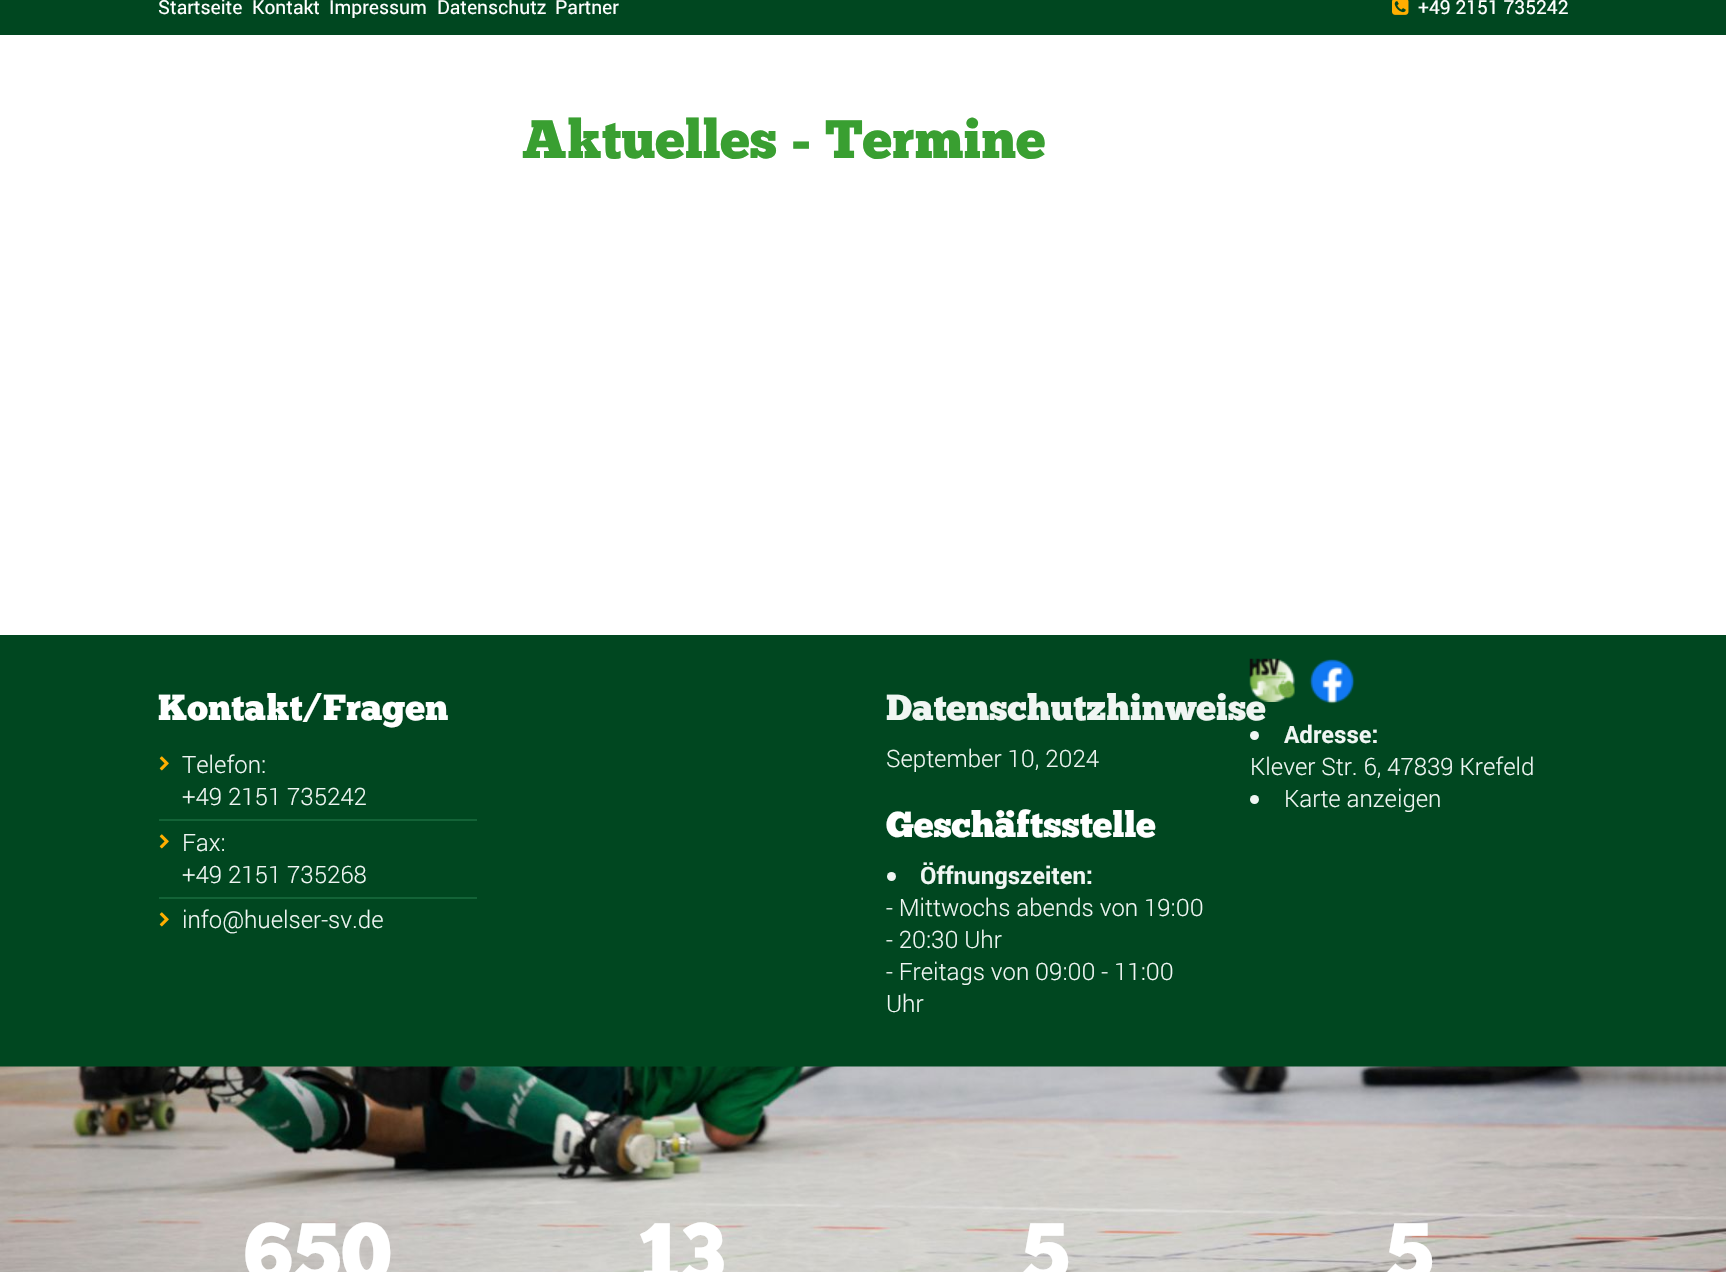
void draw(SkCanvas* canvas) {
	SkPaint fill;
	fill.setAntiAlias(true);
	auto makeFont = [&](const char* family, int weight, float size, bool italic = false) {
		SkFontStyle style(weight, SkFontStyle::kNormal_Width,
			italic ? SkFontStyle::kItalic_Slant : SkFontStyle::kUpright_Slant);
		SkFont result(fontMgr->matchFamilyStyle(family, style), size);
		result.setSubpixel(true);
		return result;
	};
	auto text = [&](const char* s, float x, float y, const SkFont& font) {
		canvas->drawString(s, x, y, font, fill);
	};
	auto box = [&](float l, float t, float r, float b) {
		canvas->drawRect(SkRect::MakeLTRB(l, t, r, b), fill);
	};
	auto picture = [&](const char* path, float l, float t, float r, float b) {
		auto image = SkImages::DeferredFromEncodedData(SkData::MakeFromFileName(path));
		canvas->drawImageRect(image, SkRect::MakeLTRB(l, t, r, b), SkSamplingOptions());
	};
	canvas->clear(0xFFFFFFFF);
	fill.setColor(0xFF004720);
	box(0, 0, 1726, 35);
	picture("image0.png", 1392, 0, 1409, 15);
	box(0, 635, 1726, 1067);
	fill.setColor(0xFF136337);
	box(159, 819, 477, 821);
	picture("image1.png", 159, 756, 169, 771);
	box(159, 897, 477, 899);
	picture("image1.png", 159, 834, 169, 849);
	picture("image1.png", 159, 912, 169, 927);
	fill.setColor(0xFFF0F6F3);
	canvas->drawCircle(891.5f, 876.5f, 4.5f, fill);
	picture("image3.png", 1309, 659, 1355, 704);
	canvas->drawCircle(1254.5f, 735.5f, 4.5f, fill);
	canvas->drawCircle(1254.5f, 799.5f, 4.5f, fill);
	picture("image4.png", 0, 1066, 1726, 1272);
	auto font1 = makeFont("roboto", 400, 19.25f);
	fill.setColor(0xFFFFFFFF);
	text("Startseite", 158, 14, font1);
	text("Kontakt", 252, 14, font1);
	text("Impressum", 329, 14, font1);
	text("Datenschutz", 437, 14, font1);
	text("Partner", 555, 14, font1);
	text("+49 2151 735242", 1418, 14, font1);
	auto font2 = makeFont("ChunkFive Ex", 400, 54);
	fill.setColor(0xFF399F31);
	text("Aktuelles - Termine", 522, 158, font2);
	auto font3 = makeFont("ChunkFive Ex", 400, 36);
	fill.setColor(0xFFFFFFFF);
	text("Kontakt/Fragen", 158, 720, font3);
	auto font4 = makeFont("Roboto", 300, 24);
	fill.setColor(0xFFF0F6F3);
	text("Telefon:", 182, 773, font4);
	text("+49 2151 735242", 182, 805, font4);
	text("Fax:", 182, 851, font4);
	text("+49 2151 735268", 182, 883, font4);
	text("info@huelser-sv.de", 182, 928, font4);
	text("Datenschutzhinweise", 886, 720, font3);
	text("September 10, 2024", 886, 767, font4);
	fill.setColor(0xFFFFFFFF);
	text("Geschäftsstelle", 886, 837, font3);
	auto font5 = makeFont("roboto", 700, 24);
	fill.setColor(0xFFF0F6F3);
	text("Öffnungszeiten:", 920, 884, font5);
	text("- Mittwochs abends von 19:00", 886, 916, font4);
	text("- 20:30 Uhr", 886, 948, font4);
	text("- Freitags von 09:00 - 11:00", 886, 980, font4);
	text("Uhr", 886, 1012, font4);
	picture("image2.png", 1249, 658, 1295, 702);
	text("Adresse:", 1284, 743, font5);
	text("Klever Str. 6, 47839 Krefeld", 1250, 775, font4);
	text("Karte anzeigen", 1284, 807, font4);
	auto font6 = makeFont("ChunkFive Ex", 400, 84);
	fill.setColor(0xFFFFFFFF);
	text("650", 244, 1282, font6);
	text("13", 638, 1282, font6);
	text("5", 1021, 1282, font6);
	text("5", 1385, 1282, font6);
}
